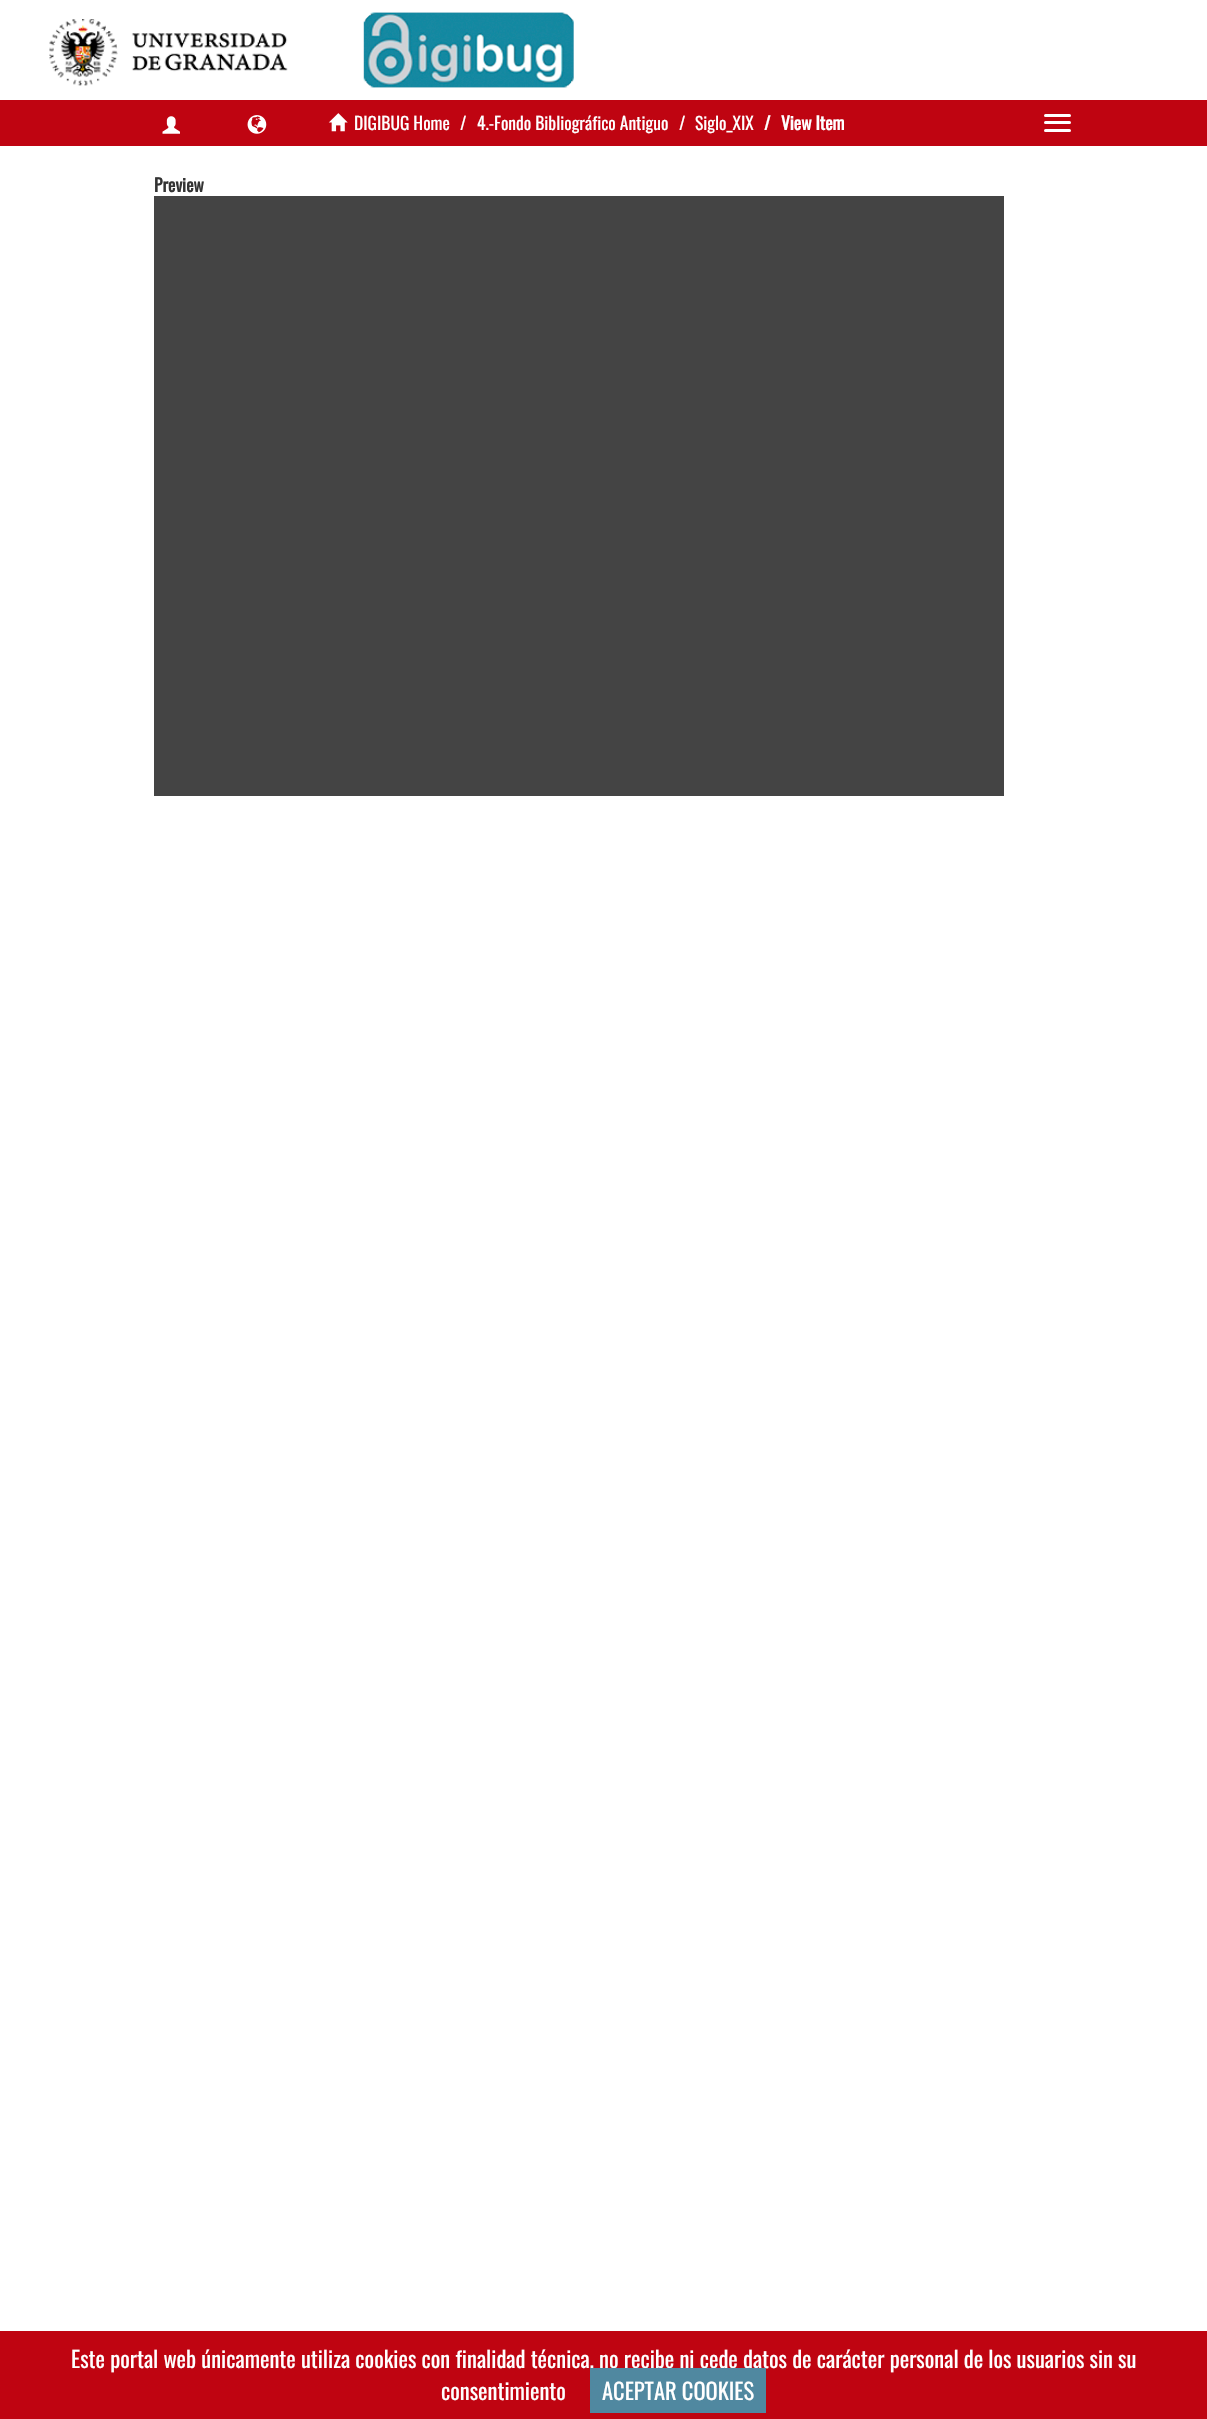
void draw(SkCanvas* canvas) {
	SkPaint fill;
	fill.setAntiAlias(true);
	auto makeFont = [&](const char* family, int weight, float size, bool italic = false) {
		SkFontStyle style(weight, SkFontStyle::kNormal_Width,
			italic ? SkFontStyle::kItalic_Slant : SkFontStyle::kUpright_Slant);
		SkFont result(fontMgr->matchFamilyStyle(family, style), size);
		result.setSubpixel(true);
		return result;
	};
	auto text = [&](const char* s, float x, float y, const SkFont& font) {
		canvas->drawString(s, x, y, font, fill);
	};
	auto box = [&](float l, float t, float r, float b) {
		canvas->drawRect(SkRect::MakeLTRB(l, t, r, b), fill);
	};
	auto roundBox = [&](float l, float t, float r, float b, float radius) {
		canvas->drawRoundRect(SkRect::MakeLTRB(l, t, r, b), radius, radius, fill);
	};
	auto picture = [&](const char* path, float l, float t, float r, float b) {
		auto image = SkImages::DeferredFromEncodedData(SkData::MakeFromFileName(path));
		canvas->drawImageRect(image, SkRect::MakeLTRB(l, t, r, b), SkSamplingOptions());
	};
	canvas->clear(0xFFFFFFFF);
	picture("image0.png", 49, 19, 288, 86);
	picture("image1.png", 363, 12, 574, 88);
	fill.setColor(0xFFBF0411);
	box(0, 100, 1207, 146);
	picture("image2.png", 162, 116, 180, 134);
	picture("image3.png", 247, 115, 267, 134);
	picture("image4.png", 328, 113, 348, 132);
	fill.setColor(0xFFFFFFFF);
	roundBox(1044, 114, 1071, 117, 1.5f);
	roundBox(1044, 121, 1071, 124, 1.5f);
	roundBox(1044, 129, 1071, 132, 1.5f);
	fill.setColor(0xFF444444);
	box(154, 196, 1004, 796);
	fill.setColor(0xFFBF0411);
	box(0, 2331, 1207, 2419);
	auto font1 = makeFont("Oswald", 400, 17.5f);
	fill.setColor(0xFFFFFFFF);
	text("DIGIBUG Home", 354, 130, font1);
	text("/", 460, 130, font1);
	text("4.-Fondo Bibliográfico Antiguo", 477, 130, font1);
	text("/", 679, 130, font1);
	text("Siglo_XIX", 695, 130, font1);
	auto font2 = makeFont("Oswald", 700, 17.5f);
	text("/", 764, 130, font2);
	text("View Item", 781, 130, font2);
	fill.setColor(0xFF333333);
	text("Preview", 154, 192, font2);
	auto font3 = makeFont("Oswald", 400, 22.5f);
	fill.setColor(0xFFFFFFFF);
	text("Este portal web únicamente utiliza cookies con finalidad técnica, no recibe ni cede datos de carácter personal de los usuarios sin su", 71, 2368, font3);
	text("consentimiento", 441, 2400, font3);
	fill.setColor(0xFF5088A0);
	box(590, 2368, 766, 2413);
	fill.setColor(0xFFFFFFFF);
	text("ACEPTAR COOKIES", 602, 2400, font3);
}
